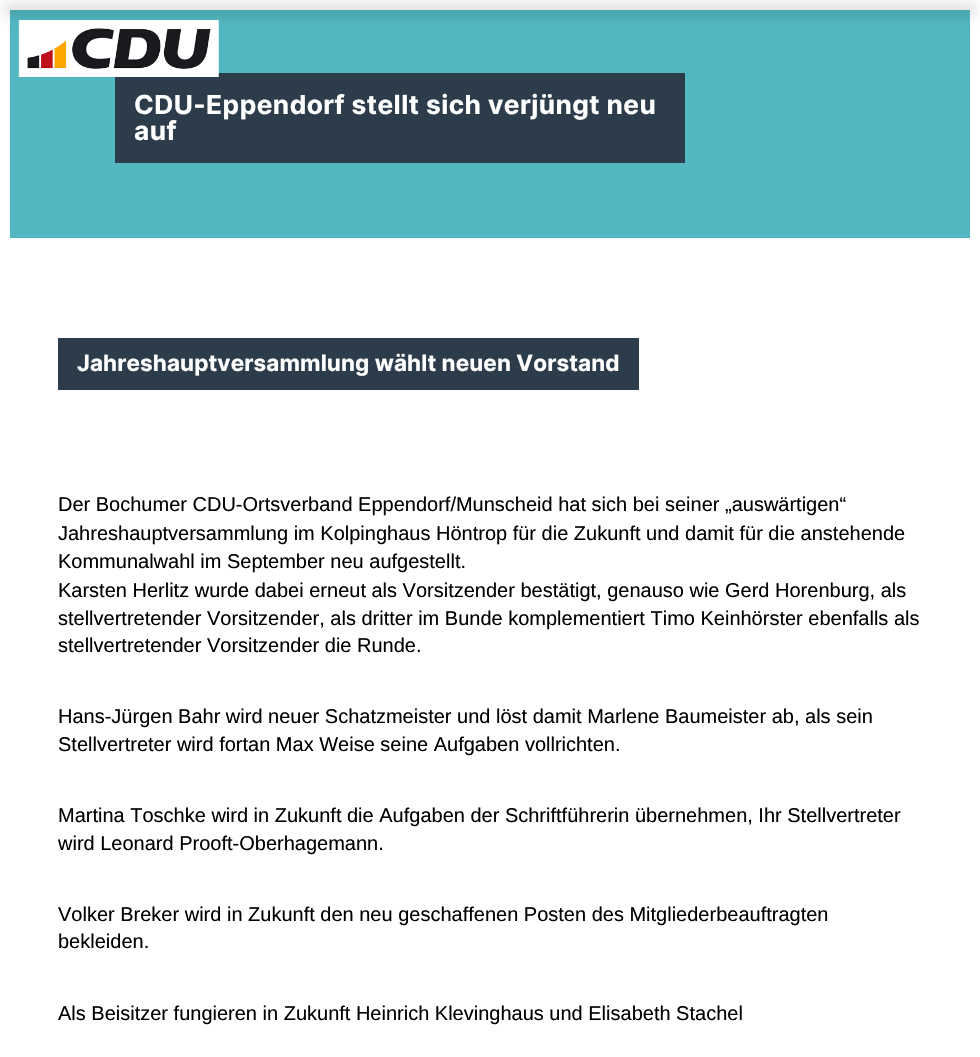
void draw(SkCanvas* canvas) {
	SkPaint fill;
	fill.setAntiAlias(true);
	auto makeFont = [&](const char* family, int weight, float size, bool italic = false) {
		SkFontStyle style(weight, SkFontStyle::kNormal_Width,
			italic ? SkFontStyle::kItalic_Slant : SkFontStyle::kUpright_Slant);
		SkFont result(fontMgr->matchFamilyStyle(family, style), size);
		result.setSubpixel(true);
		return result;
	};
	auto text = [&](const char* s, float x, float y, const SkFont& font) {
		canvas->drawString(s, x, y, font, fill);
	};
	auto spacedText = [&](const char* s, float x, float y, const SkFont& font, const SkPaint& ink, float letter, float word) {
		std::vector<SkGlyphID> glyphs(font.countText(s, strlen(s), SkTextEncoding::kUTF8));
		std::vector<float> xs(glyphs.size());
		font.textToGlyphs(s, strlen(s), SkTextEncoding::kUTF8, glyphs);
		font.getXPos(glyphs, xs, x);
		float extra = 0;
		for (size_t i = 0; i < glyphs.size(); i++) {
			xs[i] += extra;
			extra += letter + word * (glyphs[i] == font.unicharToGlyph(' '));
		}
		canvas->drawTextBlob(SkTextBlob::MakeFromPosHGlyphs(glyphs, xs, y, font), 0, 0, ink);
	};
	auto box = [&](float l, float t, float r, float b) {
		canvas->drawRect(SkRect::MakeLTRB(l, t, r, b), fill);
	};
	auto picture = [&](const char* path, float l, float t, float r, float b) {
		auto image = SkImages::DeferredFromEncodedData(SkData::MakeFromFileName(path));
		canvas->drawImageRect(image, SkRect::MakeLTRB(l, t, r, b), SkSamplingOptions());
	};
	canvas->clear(0xFFFFFFFF);
	fill.setColor(0xFF52B7C1);
	box(10, 10, 970, 238);
	fill.setColor(0x21000000);
	fill.setMaskFilter(SkMaskFilter::MakeBlur(kNormal_SkBlurStyle, 6));
	canvas->drawRect(SkRect::MakeLTRB(4, 4, 976, 16), fill);
	fill.setMaskFilter(nullptr);
	fill.setColor(0xFF2D3C4B);
	box(115, 73, 685, 163);
	picture("image0.png", 18, 20, 219, 77);
	box(58, 338, 639, 390);
	auto font1 = makeFont("Inter", 700, 26.25f);
	fill.setColor(0xFFFFFFFF);
	spacedText("CDU-Eppendorf stellt sich verjüngt neu", 134, 114, font1, fill, 0.45f, 0);
	spacedText("auf", 134, 140, font1, fill, 0.45f, 0);
	auto font2 = makeFont("Inter", 700, 22.5f);
	spacedText("Jahreshauptversammlung wählt neuen Vorstand", 77, 371, font2, fill, 0.1f, 0);
	auto font3 = makeFont("Liberation Sans", 400, 20);
	fill.setColor(0xFF000000);
	text("Der Bochumer CDU-Ortsverband Eppendorf/Munscheid hat sich bei seiner „auswärtigen“", 58, 511, font3);
	text("Jahreshauptversammlung im Kolpinghaus Höntrop für die Zukunft und damit für die anstehende", 58, 540, font3);
	text("Kommunalwahl im September neu aufgestellt.", 58, 568, font3);
	text("Karsten Herlitz wurde dabei erneut als Vorsitzender bestätigt, genauso wie Gerd Horenburg, als", 58, 597, font3);
	text("stellvertretender Vorsitzender, als dritter im Bunde komplementiert Timo Keinhörster ebenfalls als", 58, 625, font3);
	text("stellvertretender Vorsitzender die Runde.", 58, 652, font3);
	text("Hans-Jürgen Bahr wird neuer Schatzmeister und löst damit Marlene Baumeister ab, als sein", 58, 723, font3);
	text("Stellvertreter wird fortan Max Weise seine Aufgaben vollrichten.", 58, 751, font3);
	text("Martina Toschke wird in Zukunft die Aufgaben der Schriftführerin übernehmen, Ihr Stellvertreter", 58, 822, font3);
	text("wird Leonard Prooft-Oberhagemann.", 58, 850, font3);
	text("Volker Breker wird in Zukunft den neu geschaffenen Posten des Mitgliederbeauftragten", 58, 921, font3);
	text("bekleiden.", 58, 948, font3);
	text("Als Beisitzer fungieren in Zukunft Heinrich Klevinghaus und Elisabeth Stachel", 58, 1020, font3);
}
